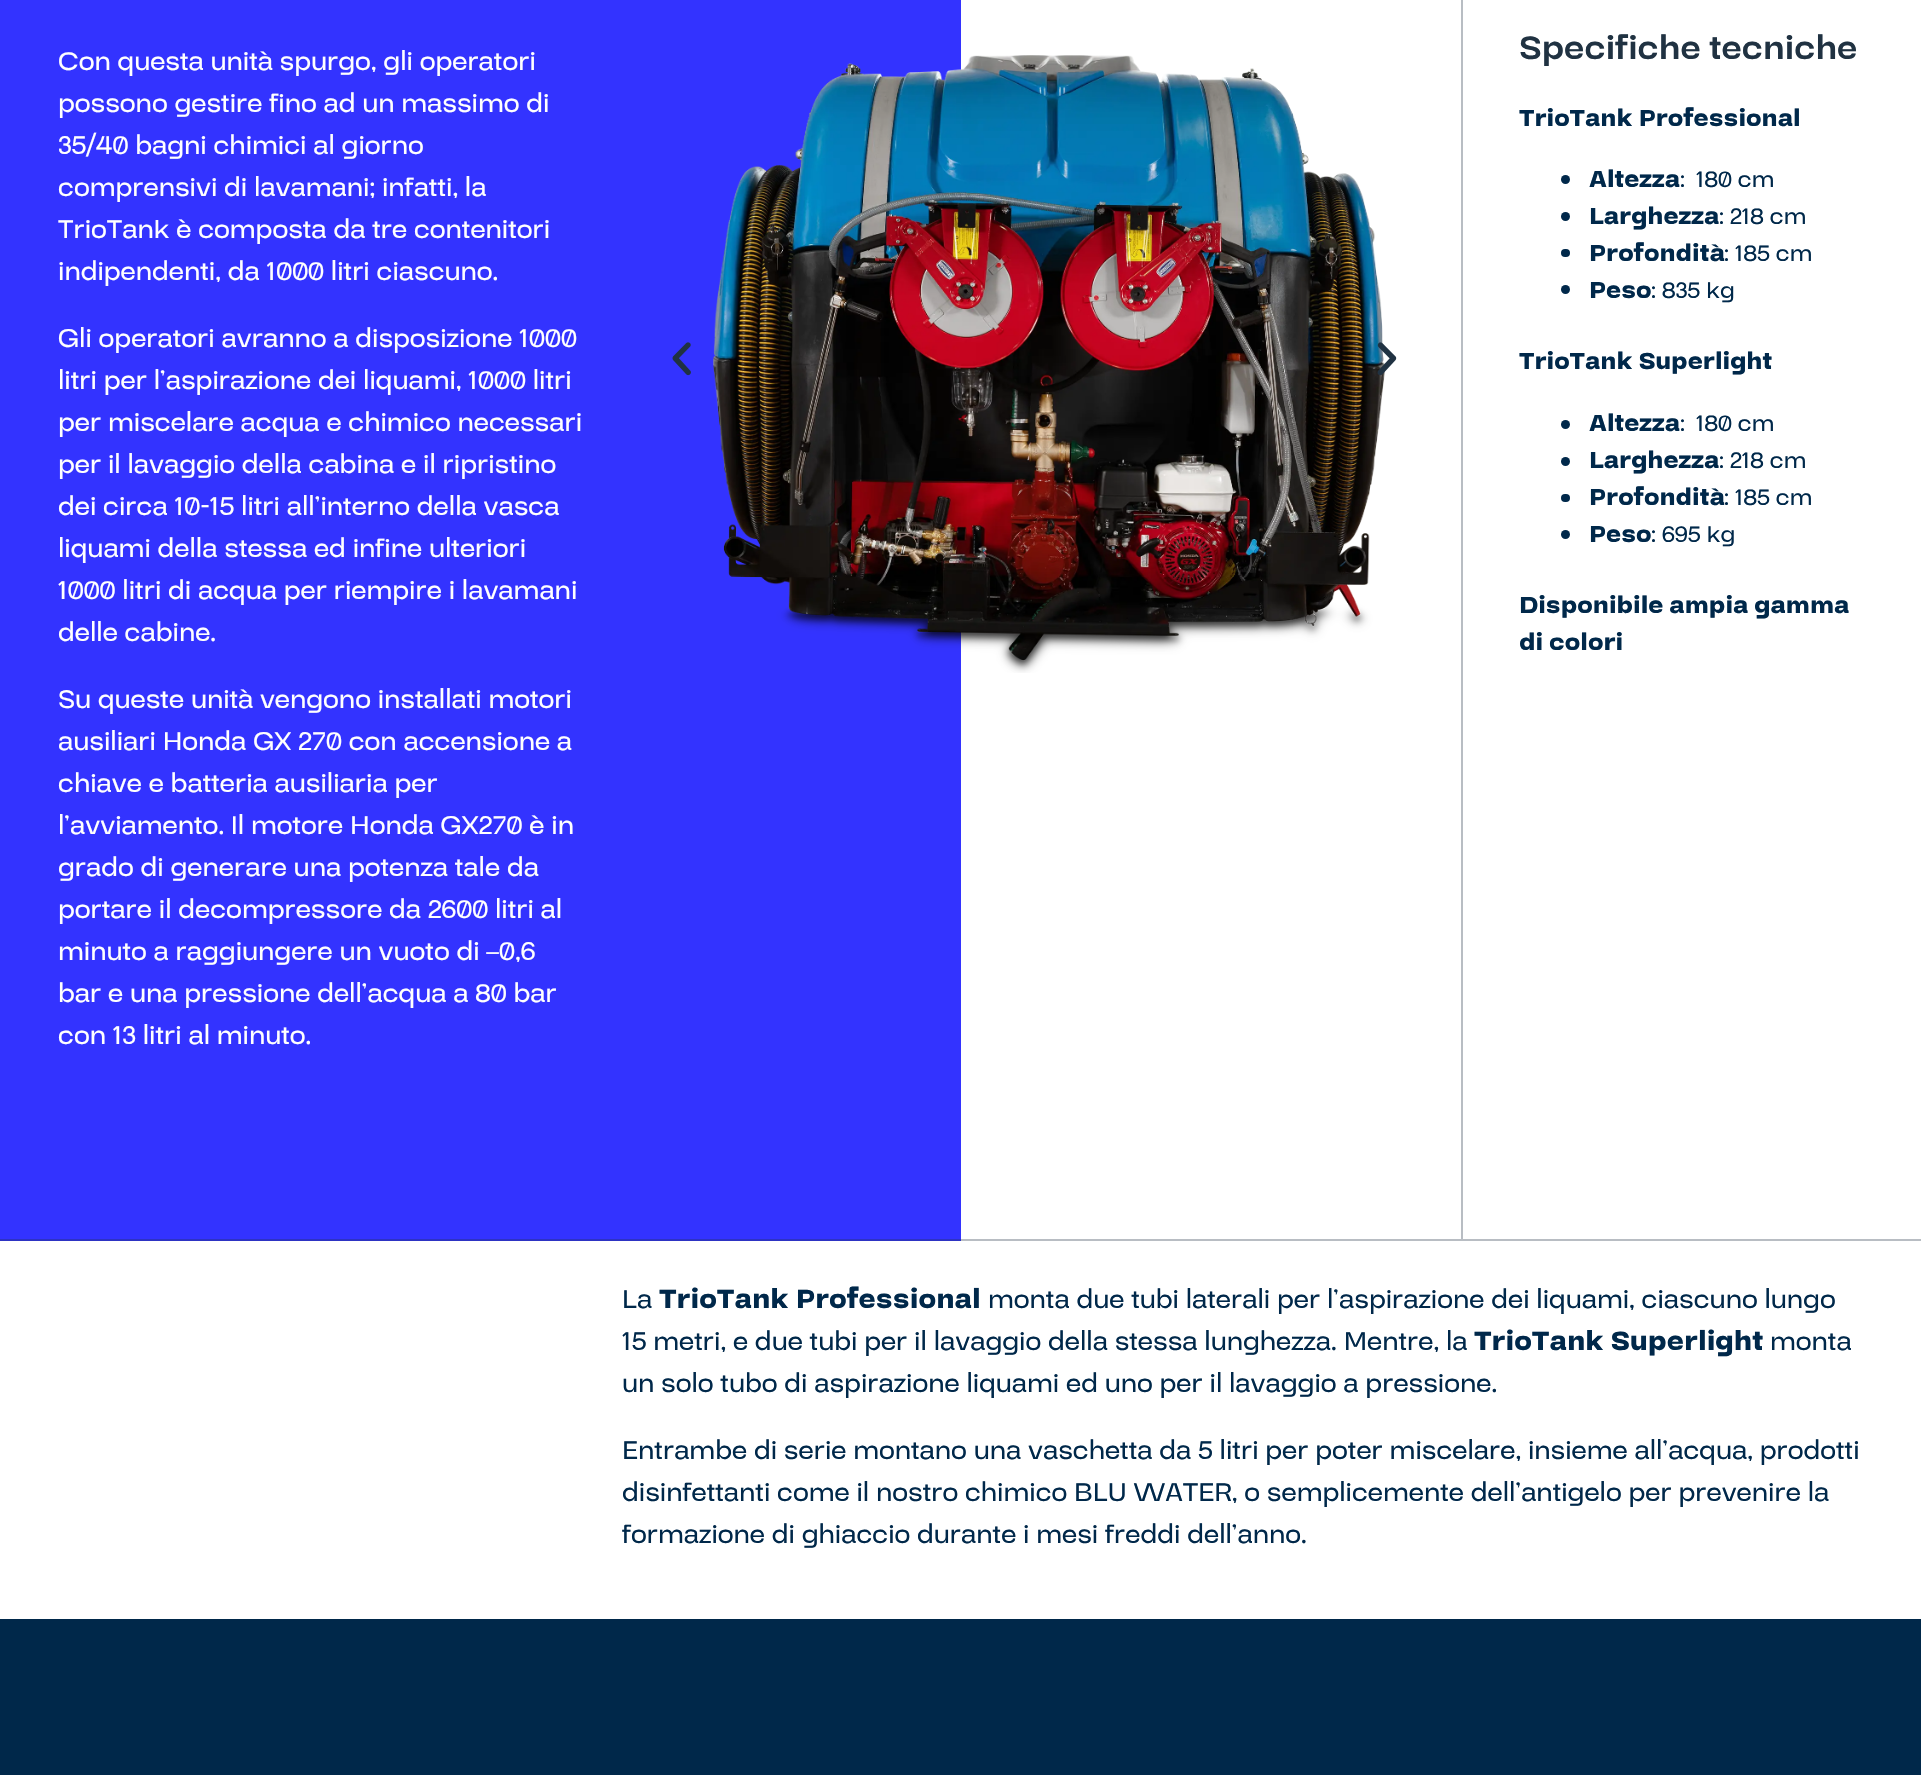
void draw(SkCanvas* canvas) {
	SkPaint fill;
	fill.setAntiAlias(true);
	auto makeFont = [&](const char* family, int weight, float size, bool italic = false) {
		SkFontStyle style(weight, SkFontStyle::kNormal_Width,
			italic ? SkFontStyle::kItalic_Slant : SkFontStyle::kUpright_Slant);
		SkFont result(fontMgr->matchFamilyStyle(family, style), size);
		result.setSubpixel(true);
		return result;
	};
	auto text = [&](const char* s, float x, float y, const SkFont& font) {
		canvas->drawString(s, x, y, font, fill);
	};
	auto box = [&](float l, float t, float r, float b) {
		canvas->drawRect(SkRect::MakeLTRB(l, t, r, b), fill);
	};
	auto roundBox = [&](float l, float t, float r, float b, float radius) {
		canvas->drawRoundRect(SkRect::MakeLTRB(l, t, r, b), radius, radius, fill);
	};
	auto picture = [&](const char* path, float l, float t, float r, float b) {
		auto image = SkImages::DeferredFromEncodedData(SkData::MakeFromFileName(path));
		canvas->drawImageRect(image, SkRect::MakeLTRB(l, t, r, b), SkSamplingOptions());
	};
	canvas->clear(0xFFFFFFFF);
	fill.setColor(0xFFB8BDC3);
	box(961, 1239, 1921, 1241);
	fill.setColor(0xFF3333FF);
	box(0, 0, 961, 1239);
	fill.setColor(0xFF2D33C3);
	box(0, 1239, 961, 1241);
	picture("image0.png", 672, 342, 691, 376);
	picture("image1.png", 713, 55, 1385, 673);
	picture("image2.png", 1377, 342, 1397, 376);
	fill.setColor(0xFFB8BDC3);
	box(1461, 0, 1463, 1239);
	fill.setColor(0xFF00284A);
	canvas->drawCircle(1565.5f, 179.5f, 4.5f, fill);
	canvas->drawCircle(1565.5f, 216.5f, 4.5f, fill);
	roundBox(1561, 249, 1570, 257, 4);
	canvas->drawCircle(1565.5f, 289.5f, 4.5f, fill);
	canvas->drawCircle(1565.5f, 424.5f, 4.5f, fill);
	canvas->drawCircle(1565.5f, 461.5f, 4.5f, fill);
	roundBox(1561, 494, 1570, 502, 4);
	canvas->drawCircle(1565.5f, 534.5f, 4.5f, fill);
	box(0, 1619, 1921, 1775);
	auto font1 = makeFont("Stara", 500, 28);
	fill.setColor(0xFFFFFFFF);
	text("Con questa unità spurgo, gli operatori", 58, 70, font1);
	text("possono gestire fino ad un massimo di", 58, 112, font1);
	text("35/40 bagni chimici al giorno", 58, 154, font1);
	text("comprensivi di lavamani; infatti, la", 58, 196, font1);
	text("TrioTank è composta da tre contenitori", 58, 238, font1);
	text("indipendenti, da 1000 litri ciascuno.", 58, 280, font1);
	text("Gli operatori avranno a disposizione 1000", 58, 347, font1);
	text("litri per l’aspirazione dei liquami, 1000 litri", 58, 389, font1);
	text("per miscelare acqua e chimico necessari", 58, 431, font1);
	text("per il lavaggio della cabina e il ripristino", 58, 473, font1);
	text("dei circa 10-15 litri all’interno della vasca", 58, 515, font1);
	text("liquami della stessa ed infine ulteriori", 58, 557, font1);
	text("1000 litri di acqua per riempire i lavamani", 58, 599, font1);
	text("delle cabine.", 58, 641, font1);
	text("Su queste unità vengono installati motori", 58, 708, font1);
	text("ausiliari Honda GX 270 con accensione a", 58, 750, font1);
	text("chiave e batteria ausiliaria per", 58, 792, font1);
	text("l’avviamento. Il motore Honda GX270 è in", 58, 834, font1);
	text("grado di generare una potenza tale da", 58, 876, font1);
	text("portare il decompressore da 2600 litri al", 58, 918, font1);
	text("minuto a raggiungere un vuoto di –0,6", 58, 960, font1);
	text("bar e una pressione dell’acqua a 80 bar", 58, 1002, font1);
	text("con 13 litri al minuto.", 58, 1044, font1);
	auto font2 = makeFont("Stara", 700, 35);
	fill.setColor(0xFF203242);
	text("Specifiche tecniche", 1519, 59, font2);
	auto font3 = makeFont("Stara", 900, 24.5f);
	fill.setColor(0xFF00284A);
	text("TrioTank Professional", 1519, 126, font3);
	text("Altezza", 1589, 187, font3);
	auto font4 = makeFont("Stara", 500, 24.5f);
	text(":", 1680, 187, font4);
	text("180 cm", 1696, 187, font4);
	text("Larghezza", 1589, 224, font3);
	text(": 218 cm", 1719, 224, font4);
	text("Profondità", 1589, 261, font3);
	text(": 185 cm", 1724, 261, font4);
	text("Peso", 1589, 298, font3);
	text(": 835 kg", 1651, 298, font4);
	text("TrioTank Superlight", 1519, 369, font3);
	text("Altezza", 1589, 431, font3);
	text(":", 1680, 431, font4);
	text("180 cm", 1696, 431, font4);
	text("Larghezza", 1589, 468, font3);
	text(": 218 cm", 1719, 468, font4);
	text("Profondità", 1589, 505, font3);
	text(": 185 cm", 1724, 505, font4);
	text("Peso", 1589, 542, font3);
	text(": 695 kg", 1651, 542, font4);
	text("Disponibile ampia gamma", 1519, 613, font3);
	text("di colori", 1519, 650, font3);
	text("La", 622, 1308, font1);
	auto font5 = makeFont("Stara", 900, 28);
	text("TrioTank Professional", 659, 1308, font5);
	text("monta due tubi laterali per l’aspirazione dei liquami, ciascuno lungo", 988, 1308, font1);
	text("15 metri, e due tubi per il lavaggio della stessa lunghezza. Mentre, la", 622, 1350, font1);
	text("TrioTank Superlight", 1474, 1350, font5);
	text("monta", 1770, 1350, font1);
	text("un solo tubo di aspirazione liquami ed uno per il lavaggio a pressione.", 622, 1392, font1);
	text("Entrambe di serie montano una vaschetta da 5 litri per poter miscelare, insieme all’acqua, prodotti", 622, 1459, font1);
	text("disinfettanti come il nostro chimico BLU WATER, o semplicemente dell’antigelo per prevenire la", 622, 1501, font1);
	text("formazione di ghiaccio durante i mesi freddi dell’anno.", 622, 1543, font1);
}
